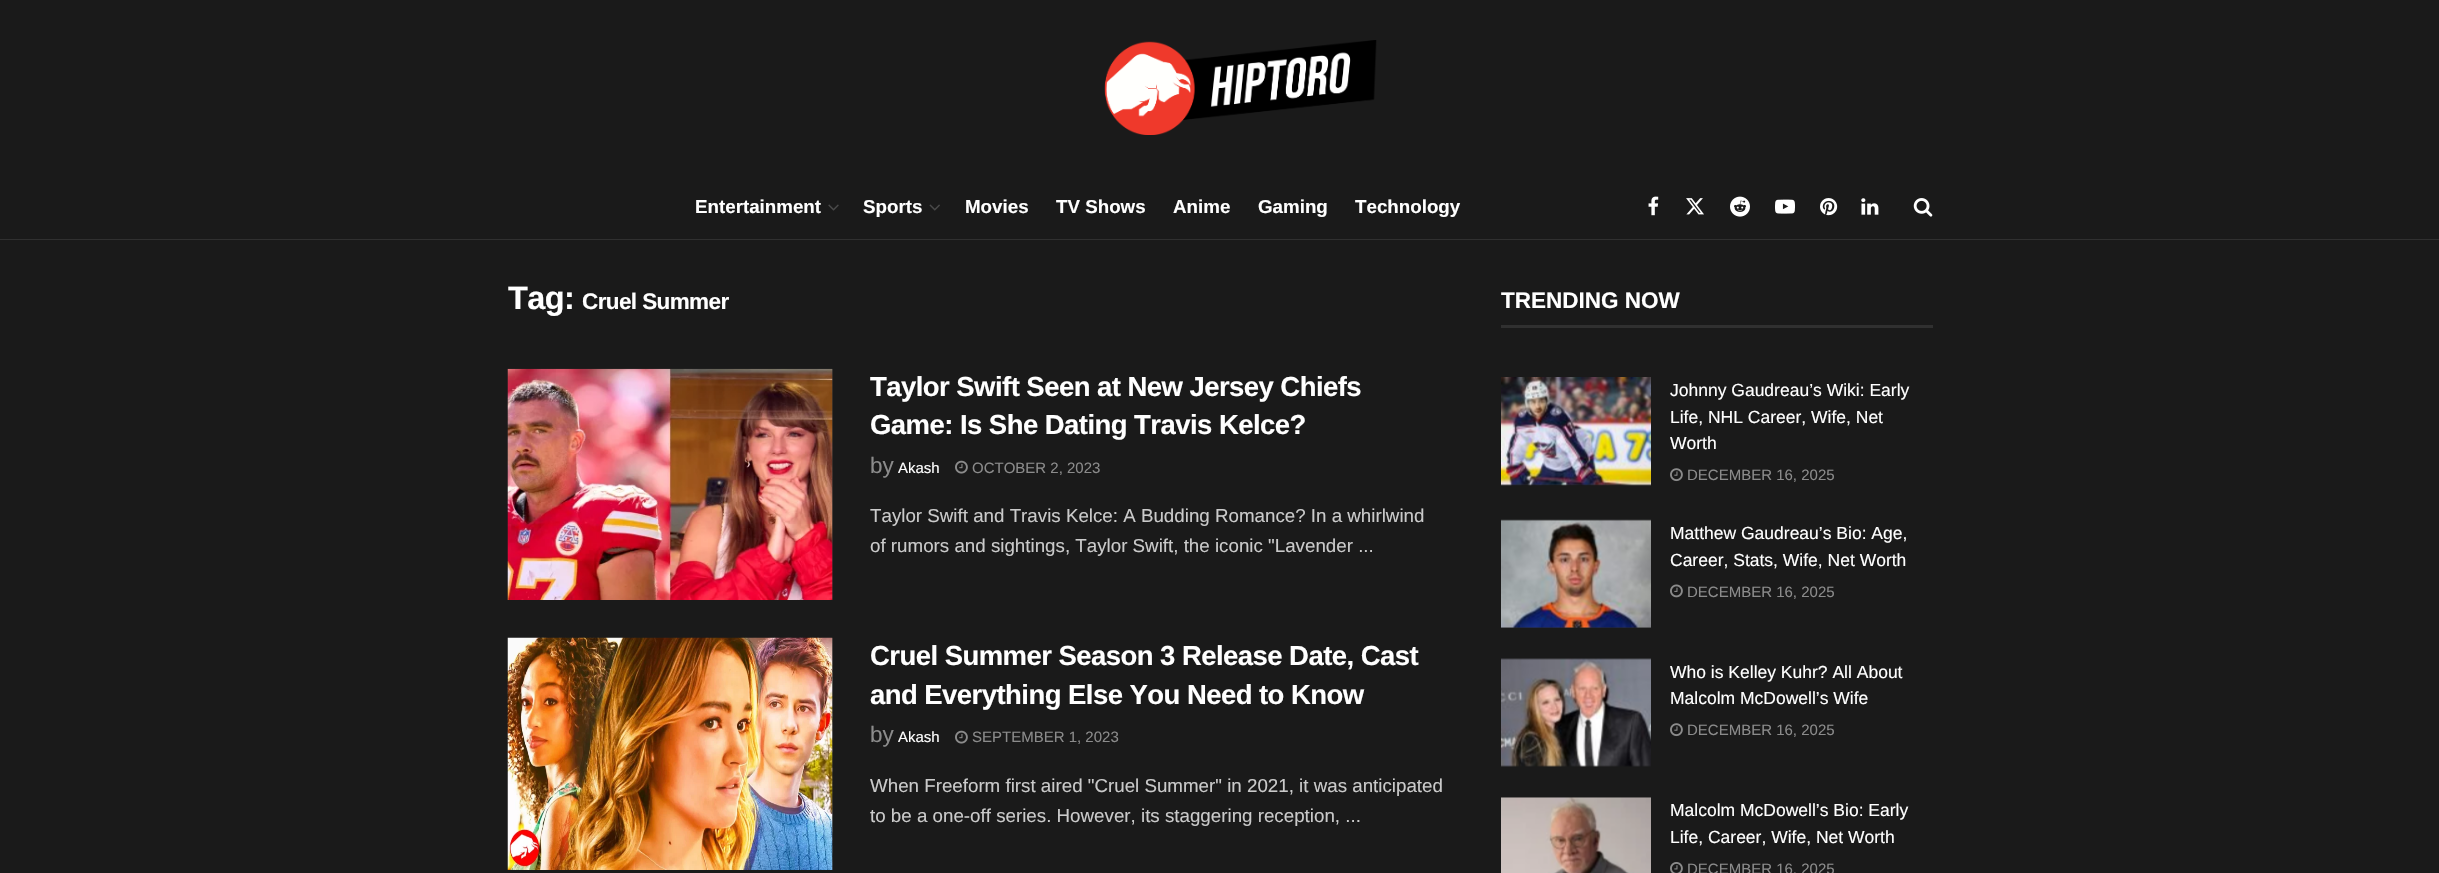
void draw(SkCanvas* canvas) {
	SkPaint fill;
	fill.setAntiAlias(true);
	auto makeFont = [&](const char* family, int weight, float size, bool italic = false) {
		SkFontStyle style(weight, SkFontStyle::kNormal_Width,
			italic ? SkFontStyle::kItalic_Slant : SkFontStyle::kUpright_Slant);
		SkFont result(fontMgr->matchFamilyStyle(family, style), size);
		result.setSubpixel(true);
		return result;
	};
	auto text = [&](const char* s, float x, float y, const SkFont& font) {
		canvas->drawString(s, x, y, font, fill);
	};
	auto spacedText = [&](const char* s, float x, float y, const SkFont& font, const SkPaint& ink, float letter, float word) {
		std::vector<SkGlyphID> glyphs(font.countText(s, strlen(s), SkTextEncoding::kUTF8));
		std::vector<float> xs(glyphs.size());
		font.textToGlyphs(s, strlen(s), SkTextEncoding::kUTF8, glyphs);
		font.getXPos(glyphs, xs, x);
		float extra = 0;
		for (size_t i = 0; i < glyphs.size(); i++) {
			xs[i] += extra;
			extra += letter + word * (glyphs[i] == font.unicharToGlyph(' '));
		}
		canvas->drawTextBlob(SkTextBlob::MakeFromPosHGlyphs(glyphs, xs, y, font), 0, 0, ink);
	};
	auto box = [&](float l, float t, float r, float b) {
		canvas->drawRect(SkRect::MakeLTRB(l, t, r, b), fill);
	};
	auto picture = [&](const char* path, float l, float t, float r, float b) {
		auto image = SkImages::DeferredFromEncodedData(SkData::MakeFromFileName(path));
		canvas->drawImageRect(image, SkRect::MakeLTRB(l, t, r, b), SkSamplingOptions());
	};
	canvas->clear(0xFF1A1A1A);
	picture("image0.png", 1104, 40, 1377, 135);
	fill.setColor(0xFF303030);
	box(0, 239, 2439, 240);
	picture("image1.png", 828, 204, 839, 211);
	picture("image2.png", 929, 204, 940, 211);
	picture("image3.png", 1648, 196, 1659, 216);
	picture("image4.png", 1686, 198, 1704, 215);
	picture("image5.png", 1730, 196, 1750, 217);
	picture("image6.png", 1775, 199, 1795, 214);
	picture("image7.png", 1820, 198, 1838, 216);
	picture("image8.png", 1861, 198, 1879, 215);
	picture("image9.png", 1913, 198, 1933, 217);
	fill.setColor(0xFF282828);
	box(832, 369, 833, 600);
	picture("image10.png", 507, 368, 833, 600);
	picture("image11.png", 955, 460, 968, 474);
	box(832, 638, 833, 870);
	picture("image12.png", 507, 637, 833, 870);
	picture("image11.png", 955, 730, 968, 744);
	fill.setColor(0xFF303030);
	box(1501, 325, 1933, 328);
	fill.setColor(0xFF282828);
	box(1501, 484, 1651, 485);
	picture("image13.png", 1501, 377, 1651, 486);
	picture("image14.png", 1670, 468, 1683, 482);
	box(1501, 520, 1651, 628);
	picture("image15.png", 1501, 519, 1651, 628);
	picture("image16.png", 1670, 584, 1683, 598);
	picture("image17.png", 1501, 658, 1651, 767);
	picture("image14.png", 1670, 723, 1683, 737);
	fill.setColor(0xFF212121);
	box(1501, 797, 1651, 798);
	picture("image18.png", 1501, 797, 1651, 873);
	picture("image19.png", 1670, 862, 1683, 873);
	auto font1 = makeFont("Liberation Sans", 700, 18.75f);
	fill.setColor(0xFFFFFFFF);
	text("Entertainment", 695, 213, font1);
	text("Sports", 863, 213, font1);
	text("Movies", 965, 213, font1);
	text("TV Shows", 1056, 213, font1);
	text("Anime", 1173, 213, font1);
	text("Gaming", 1258, 213, font1);
	text("Technology", 1355, 213, font1);
	auto font2 = makeFont("Liberation Sans", 700, 32.5f);
	spacedText("Tag:", 508, 309, font2, fill, -0.6f, 0);
	auto font3 = makeFont("Liberation Sans", 700, 22.5f);
	spacedText("Cruel Summer", 582, 309, font3, fill, -0.6f, 0);
	auto font4 = makeFont("Liberation Sans", 700, 27.5f);
	spacedText("Taylor Swift Seen at New Jersey Chiefs", 870, 396, font4, fill, -0.55f, 0);
	spacedText("Game: Is She Dating Travis Kelce?", 870, 434, font4, fill, -0.55f, 0);
	auto font5 = makeFont("Liberation Sans", 400, 22.5f);
	fill.setColor(0xFF8B8B8B);
	text("by", 870, 473, font5);
	auto font6 = makeFont("Liberation Sans", 400, 15);
	fill.setColor(0xFFFFFFFF);
	text("Akash", 898, 473, font6);
	fill.setColor(0xFF8B8B8B);
	text("OCTOBER 2, 2023", 972, 473, font6);
	auto font7 = makeFont("Liberation Sans", 400, 18.75f);
	fill.setColor(0xFFCACACA);
	text("Taylor Swift and Travis Kelce: A Budding Romance? In a whirlwind", 870, 522, font7);
	text("of rumors and sightings, Taylor Swift, the iconic \"Lavender ...", 870, 552, font7);
	fill.setColor(0xFFFFFFFF);
	spacedText("Cruel Summer Season 3 Release Date, Cast", 870, 665, font4, fill, -0.55f, 0);
	spacedText("and Everything Else You Need to Know", 870, 704, font4, fill, -0.55f, 0);
	fill.setColor(0xFF8B8B8B);
	text("by", 870, 742, font5);
	fill.setColor(0xFFFFFFFF);
	text("Akash", 898, 742, font6);
	fill.setColor(0xFF8B8B8B);
	text("SEPTEMBER 1, 2023", 972, 742, font6);
	fill.setColor(0xFFCACACA);
	text("When Freeform first aired \"Cruel Summer\" in 2021, it was anticipated", 870, 792, font7);
	text("to be a one-off series. However, its staggering reception, ...", 870, 822, font7);
	fill.setColor(0xFFFFFFFF);
	text("TRENDING NOW", 1501, 308, font3);
	auto font8 = makeFont("Liberation Sans", 400, 17.5f);
	text("Johnny Gaudreau’s Wiki: Early", 1670, 396, font8);
	text("Life, NHL Career, Wife, Net", 1670, 423, font8);
	text("Worth", 1670, 449, font8);
	fill.setColor(0xFF8B8B8B);
	text("DECEMBER 16, 2025", 1687, 480, font6);
	fill.setColor(0xFFFFFFFF);
	text("Matthew Gaudreau’s Bio: Age,", 1670, 539, font8);
	text("Career, Stats, Wife, Net Worth", 1670, 566, font8);
	fill.setColor(0xFF8B8B8B);
	text("DECEMBER 16, 2025", 1687, 597, font6);
	fill.setColor(0xFFFFFFFF);
	text("Who is Kelley Kuhr? All About", 1670, 678, font8);
	text("Malcolm McDowell’s Wife", 1670, 704, font8);
	fill.setColor(0xFF8B8B8B);
	text("DECEMBER 16, 2025", 1687, 735, font6);
	fill.setColor(0xFFFFFFFF);
	text("Malcolm McDowell’s Bio: Early", 1670, 816, font8);
	text("Life, Career, Wife, Net Worth", 1670, 843, font8);
	fill.setColor(0xFF8B8B8B);
	text("DECEMBER 16, 2025", 1687, 874, font6);
}
